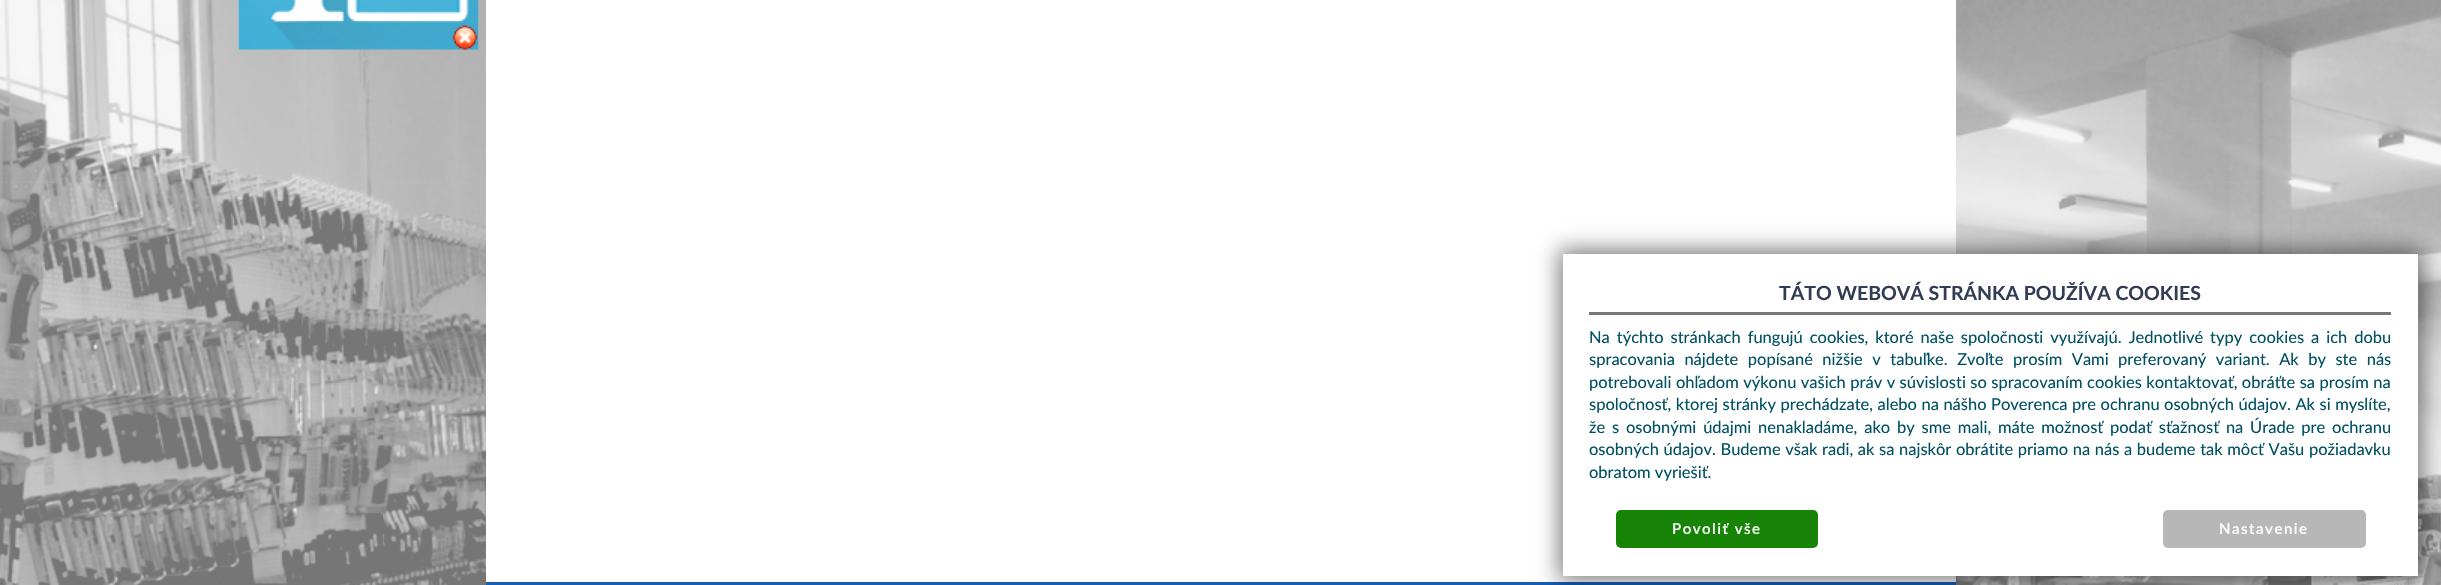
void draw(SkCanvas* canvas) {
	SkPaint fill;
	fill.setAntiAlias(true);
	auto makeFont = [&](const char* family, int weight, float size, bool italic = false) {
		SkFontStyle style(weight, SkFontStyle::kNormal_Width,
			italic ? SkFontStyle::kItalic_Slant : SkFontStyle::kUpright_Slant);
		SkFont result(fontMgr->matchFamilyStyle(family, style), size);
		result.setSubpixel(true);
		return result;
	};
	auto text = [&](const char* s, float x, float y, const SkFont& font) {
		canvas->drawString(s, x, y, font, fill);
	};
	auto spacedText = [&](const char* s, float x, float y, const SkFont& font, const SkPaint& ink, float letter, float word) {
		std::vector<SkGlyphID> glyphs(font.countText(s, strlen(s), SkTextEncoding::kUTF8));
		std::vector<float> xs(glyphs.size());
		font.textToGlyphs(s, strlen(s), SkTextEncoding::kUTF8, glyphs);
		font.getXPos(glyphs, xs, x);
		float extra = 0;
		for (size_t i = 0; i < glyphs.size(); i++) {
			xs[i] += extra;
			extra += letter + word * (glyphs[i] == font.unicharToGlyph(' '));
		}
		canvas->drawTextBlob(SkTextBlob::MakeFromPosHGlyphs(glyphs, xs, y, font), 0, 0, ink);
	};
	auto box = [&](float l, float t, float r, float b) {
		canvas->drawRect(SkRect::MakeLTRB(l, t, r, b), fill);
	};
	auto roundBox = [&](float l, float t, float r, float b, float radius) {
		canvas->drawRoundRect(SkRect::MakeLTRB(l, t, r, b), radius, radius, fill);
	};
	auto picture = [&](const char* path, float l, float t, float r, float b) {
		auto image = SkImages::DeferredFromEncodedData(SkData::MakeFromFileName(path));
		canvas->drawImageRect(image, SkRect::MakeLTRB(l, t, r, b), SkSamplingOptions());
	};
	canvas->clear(0xFFECECEC);
	picture("image0.png", 0, 0, 2441, 585);
	picture("image1.png", 238, 0, 479, 50);
	picture("image2.png", 452, 25, 478, 50);
	fill.setColor(0xFFFFFFFF);
	box(486, 0, 1956, 582);
	fill.setColor(0xFF165DB3);
	box(486, 582, 1956, 585);
	fill.setColor(0x80000000);
	fill.setMaskFilter(SkMaskFilter::MakeBlur(kNormal_SkBlurStyle, 10.5f));
	canvas->drawRect(SkRect::MakeLTRB(1559, 249, 2423, 581), fill);
	fill.setMaskFilter(nullptr);
	fill.setColor(0xFFFFFFFF);
	box(1563, 254, 2418, 576);
	fill.setColor(0xFF777777);
	box(1589, 312, 2391, 315);
	fill.setColor(0xFF178408);
	roundBox(1616, 510, 1818, 548, 5);
	fill.setColor(0xFFB7B7B7);
	roundBox(2163, 510, 2366, 548, 5);
	auto font1 = makeFont("Lato", 700, 19.5f);
	fill.setColor(0xFF323D55);
	text("TÁTO WEBOVÁ STRÁNKA POUŽÍVA COOKIES", 1779, 300, font1);
	auto font2 = makeFont("Lato", 400, 16.5f);
	fill.setColor(0xFF005064);
	spacedText("Na týchto stránkach fungujú cookies, ktoré naše spoločnosti využívajú. Jednotlivé typy cookies a ich dobu", 1589, 343, font2, fill, 0, 2.75f);
	spacedText("spracovania nájdete popísané nižšie v tabuľke. Zvoľte prosím Vami preferovaný variant. Ak by ste nás", 1589, 365, font2, fill, 0, 5.25f);
	spacedText("potrebovali ohľadom výkonu vašich práv v súvislosti so spracovaním cookies kontaktovať, obráťte sa prosím na", 1589, 388, font2, fill, 0, 0.25f);
	spacedText("spoločnosť, ktorej stránky prechádzate, alebo na nášho Poverenca pre ochranu osobných údajov. Ak si myslíte,", 1589, 410, font2, fill, 0, 0.3f);
	spacedText("že s osobnými údajmi nenakladáme, ako by sme mali, máte možnosť podať sťažnosť na Úrade pre ochranu", 1589, 433, font2, fill, 0, 2.6f);
	spacedText("osobných údajov. Budeme však radi, ak sa najskôr obrátite priamo na nás a budeme tak môcť Vašu požiadavku", 1589, 455, font2, fill, 0, 0.4f);
	text("obratom vyriešiť.", 1589, 478, font2);
	auto font3 = makeFont("Lato", 600, 15);
	fill.setColor(0xFFFFFFFF);
	spacedText("Povoliť vše", 1672, 534, font3, fill, 1.5f, 0);
	spacedText("Nastavenie", 2219, 534, font3, fill, 1.5f, 0);
}
